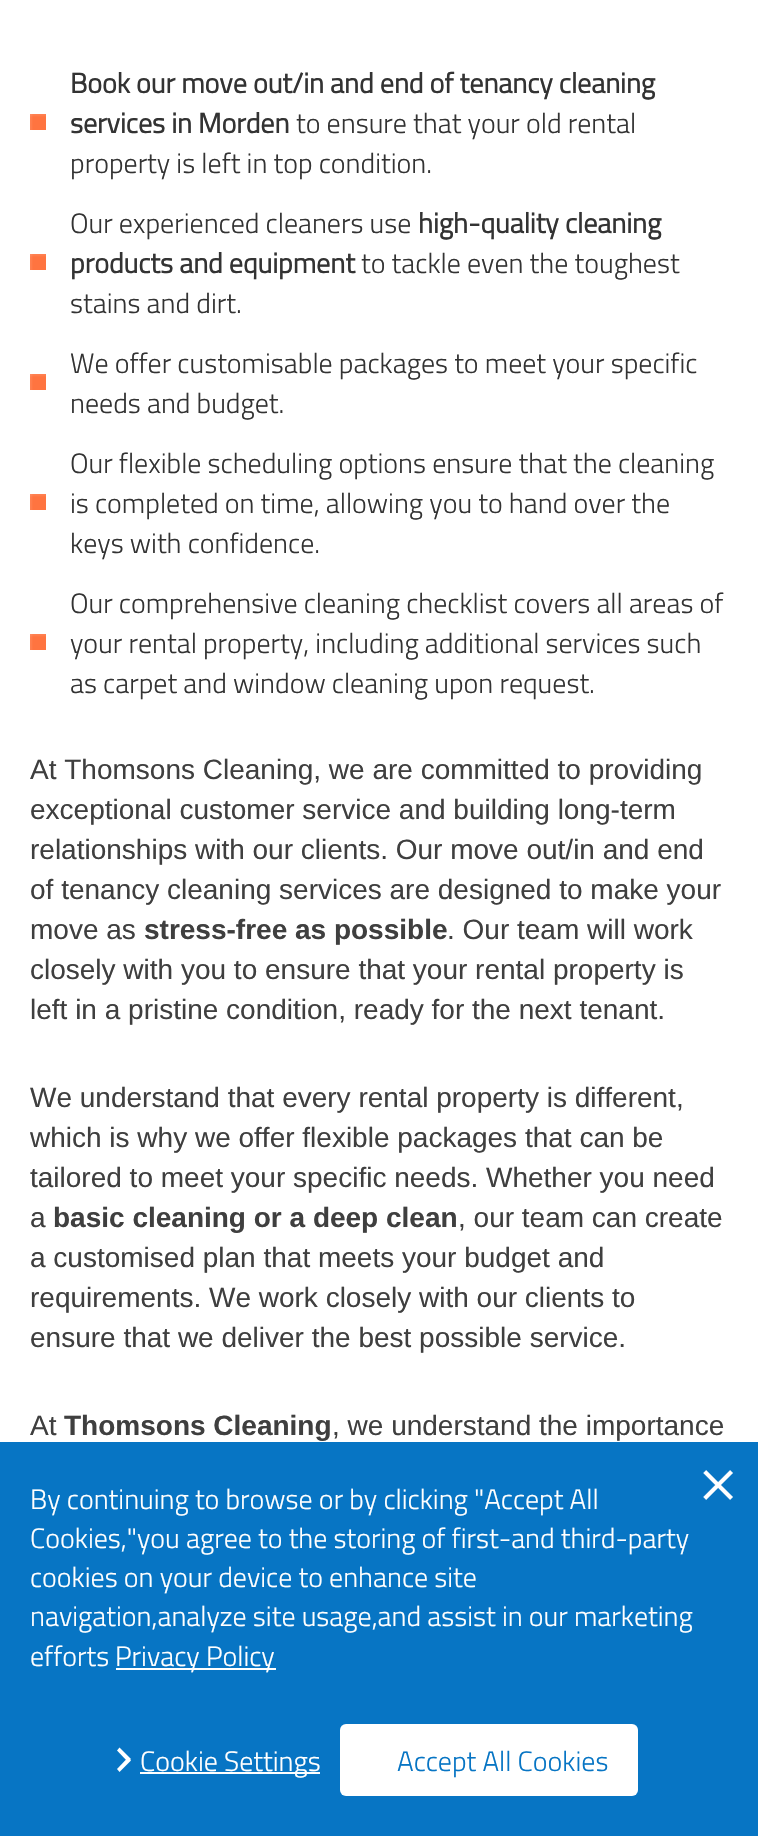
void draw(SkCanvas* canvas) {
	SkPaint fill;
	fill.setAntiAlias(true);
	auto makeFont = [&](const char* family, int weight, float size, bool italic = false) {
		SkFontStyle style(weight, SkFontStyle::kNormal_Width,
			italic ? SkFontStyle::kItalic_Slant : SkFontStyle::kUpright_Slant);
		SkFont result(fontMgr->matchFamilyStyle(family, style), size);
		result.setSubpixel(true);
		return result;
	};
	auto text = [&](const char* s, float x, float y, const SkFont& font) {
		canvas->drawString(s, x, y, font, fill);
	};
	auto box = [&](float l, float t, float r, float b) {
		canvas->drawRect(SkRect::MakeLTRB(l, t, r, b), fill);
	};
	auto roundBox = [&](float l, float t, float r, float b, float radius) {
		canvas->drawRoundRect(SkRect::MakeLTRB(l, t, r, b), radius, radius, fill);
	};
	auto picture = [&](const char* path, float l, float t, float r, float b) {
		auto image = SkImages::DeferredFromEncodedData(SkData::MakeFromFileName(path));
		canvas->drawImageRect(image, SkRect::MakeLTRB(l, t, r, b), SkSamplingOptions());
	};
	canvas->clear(0xFFFFFFFF);
	picture("image0.png", 30, 114, 46, 130);
	picture("image0.png", 30, 254, 46, 270);
	picture("image0.png", 30, 374, 46, 390);
	picture("image0.png", 30, 494, 46, 510);
	picture("image0.png", 30, 634, 46, 650);
	fill.setColor(0xFF0775C4);
	box(0, 1442, 758, 1836);
	fill.setColor(0xFFFFFFFF);
	canvas->drawPath(SkPathBuilder().moveTo(117, 1750.5f).lineTo(119.5f, 1747.5f).lineTo(131, 1759).lineTo(128, 1762).close().detach(), fill);
	box(140, 1772, 320, 1774);
	canvas->drawPath(SkPathBuilder().moveTo(128, 1757.5f).lineTo(131, 1760.5f).lineTo(119.5f, 1772).lineTo(117, 1769).close().detach(), fill);
	roundBox(340, 1724, 638, 1796, 6);
	box(116, 1668, 276, 1670);
	auto font1 = makeFont("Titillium", 700, 28);
	fill.setColor(0xFF333333);
	text("Book our move out/in and end of tenancy cleaning", 70, 93, font1);
	text("services in Morden", 70, 133, font1);
	auto font2 = makeFont("Titillium", 300, 28);
	text("to ensure that your old rental", 296, 133, font2);
	text("property is left in top condition.", 70, 173, font2);
	text("Our experienced cleaners use", 70, 233, font2);
	text("high-quality cleaning", 418, 233, font1);
	text("products and equipment", 70, 273, font1);
	text("to tackle even the toughest", 361, 273, font2);
	text("stains and dirt.", 70, 313, font2);
	text("We offer customisable packages to meet your specific", 70, 373, font2);
	text("needs and budget.", 70, 413, font2);
	text("Our flexible scheduling options ensure that the cleaning", 70, 473, font2);
	text("is completed on time, allowing you to hand over the", 70, 513, font2);
	text("keys with confidence.", 70, 553, font2);
	text("Our comprehensive cleaning checklist covers all areas of", 70, 613, font2);
	text("your rental property, including additional services such", 70, 653, font2);
	text("as carpet and window cleaning upon request.", 70, 693, font2);
	auto font3 = makeFont("Liberation Sans", 400, 28);
	fill.setColor(0xFF3F3F3F);
	text("At Thomsons Cleaning, we are committed to providing", 30, 779, font3);
	text("exceptional customer service and building long-term", 30, 819, font3);
	text("relationships with our clients. Our move out/in and end", 30, 859, font3);
	text("of tenancy cleaning services are designed to make your", 30, 899, font3);
	text("move as", 30, 939, font3);
	auto font4 = makeFont("Liberation Sans", 700, 28);
	text("stress-free as possible", 144, 939, font4);
	text(". Our team will work", 447, 939, font3);
	text("closely with you to ensure that your rental property is", 30, 979, font3);
	text("left in a pristine condition, ready for the next tenant.", 30, 1019, font3);
	text("We understand that every rental property is different,", 30, 1107, font3);
	text("which is why we offer flexible packages that can be", 30, 1147, font3);
	text("tailored to meet your specific needs. Whether you need", 30, 1187, font3);
	text("a", 30, 1227, font3);
	text("basic cleaning or a deep clean", 53, 1227, font4);
	text(", our team can create", 458, 1227, font3);
	text("a customised plan that meets your budget and", 30, 1267, font3);
	text("requirements. We work closely with our clients to", 30, 1307, font3);
	text("ensure that we deliver the best possible service.", 30, 1347, font3);
	text("At", 30, 1435, font3);
	text("Thomsons Cleaning", 64, 1435, font4);
	text(", we understand the importance", 332, 1435, font3);
	auto font5 = makeFont("Titillium", 300, 72);
	fill.setColor(0xFFFFFFFF);
	text("×", 698, 1503, font5);
	text("Cookie Settings", 140, 1771, font2);
	fill.setColor(0xFF0775C4);
	text("Accept All Cookies", 397, 1771, font2);
	fill.setColor(0xFFFFFFFF);
	text("By continuing to browse or by clicking \"Accept All", 30, 1509, font2);
	text("Cookies,\"you agree to the storing of first-and third-party", 30, 1548, font2);
	text("cookies on your device to enhance site", 30, 1587, font2);
	text("navigation,analyze site usage,and assist in our marketing", 30, 1626, font2);
	text("efforts", 30, 1666, font2);
	text("Privacy Policy", 115, 1666, font2);
}
